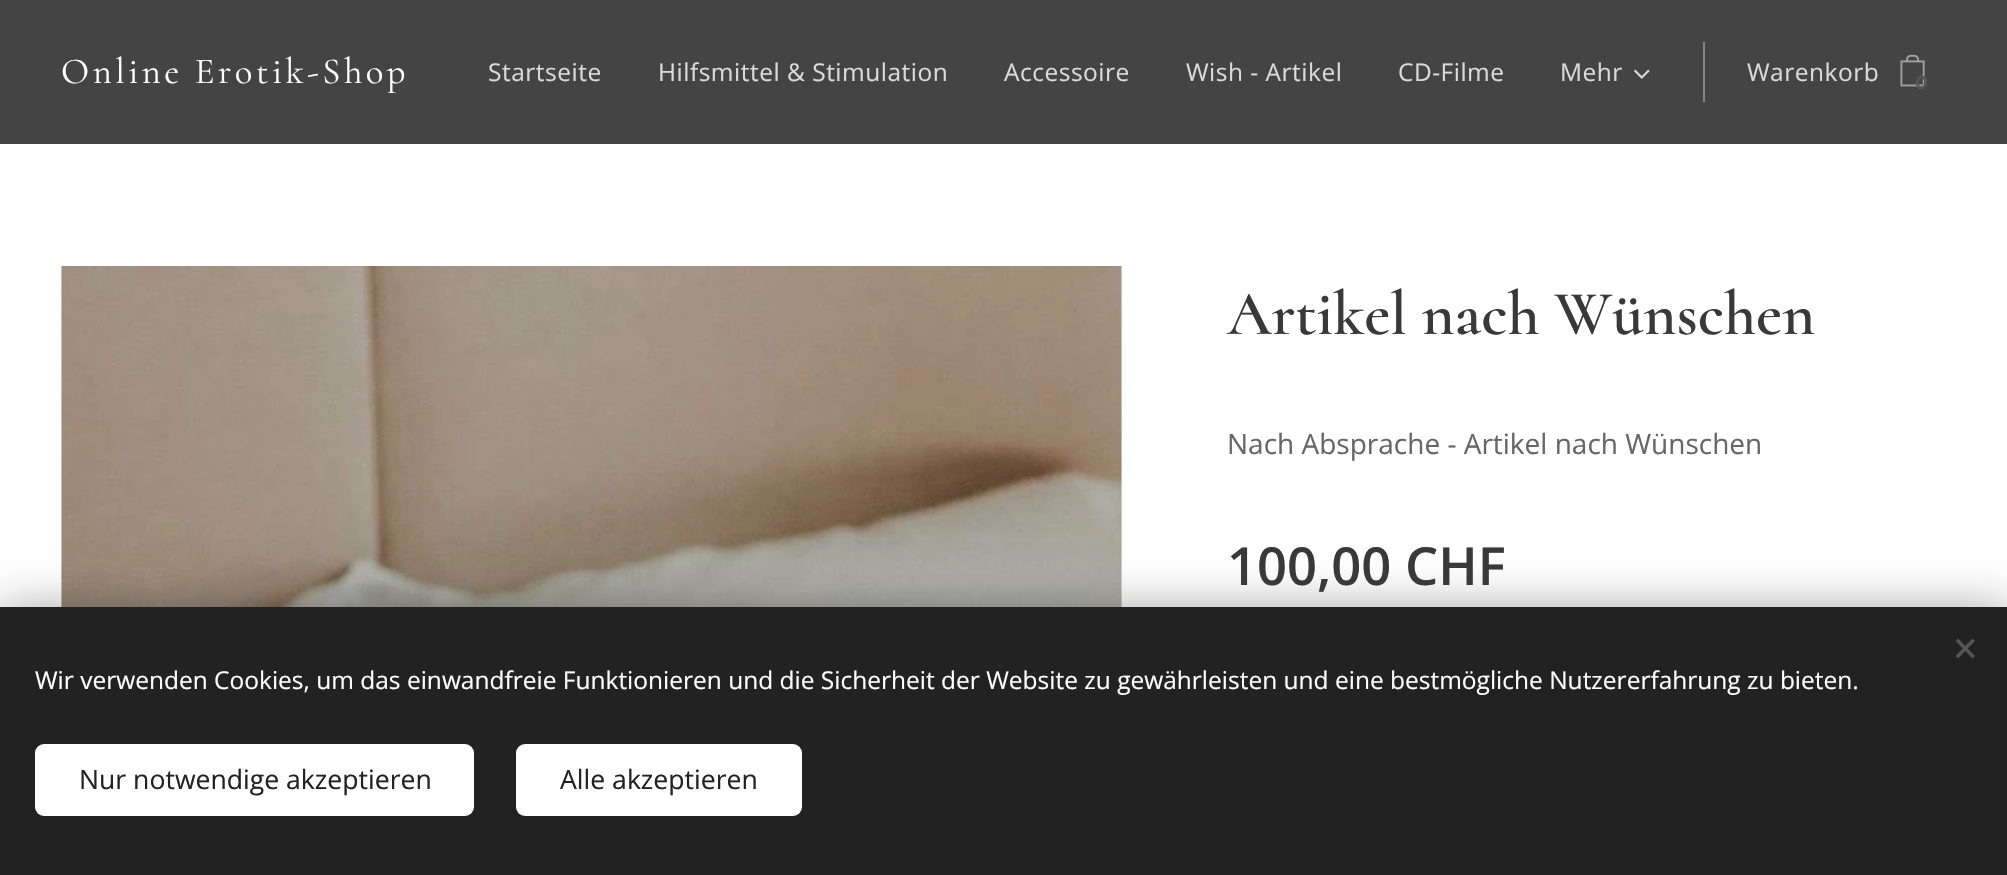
void draw(SkCanvas* canvas) {
	SkPaint fill;
	fill.setAntiAlias(true);
	auto makeFont = [&](const char* family, int weight, float size, bool italic = false) {
		SkFontStyle style(weight, SkFontStyle::kNormal_Width,
			italic ? SkFontStyle::kItalic_Slant : SkFontStyle::kUpright_Slant);
		SkFont result(fontMgr->matchFamilyStyle(family, style), size);
		result.setSubpixel(true);
		return result;
	};
	auto text = [&](const char* s, float x, float y, const SkFont& font) {
		canvas->drawString(s, x, y, font, fill);
	};
	auto spacedText = [&](const char* s, float x, float y, const SkFont& font, const SkPaint& ink, float letter, float word) {
		std::vector<SkGlyphID> glyphs(font.countText(s, strlen(s), SkTextEncoding::kUTF8));
		std::vector<float> xs(glyphs.size());
		font.textToGlyphs(s, strlen(s), SkTextEncoding::kUTF8, glyphs);
		font.getXPos(glyphs, xs, x);
		float extra = 0;
		for (size_t i = 0; i < glyphs.size(); i++) {
			xs[i] += extra;
			extra += letter + word * (glyphs[i] == font.unicharToGlyph(' '));
		}
		canvas->drawTextBlob(SkTextBlob::MakeFromPosHGlyphs(glyphs, xs, y, font), 0, 0, ink);
	};
	auto box = [&](float l, float t, float r, float b) {
		canvas->drawRect(SkRect::MakeLTRB(l, t, r, b), fill);
	};
	auto roundBox = [&](float l, float t, float r, float b, float radius) {
		canvas->drawRoundRect(SkRect::MakeLTRB(l, t, r, b), radius, radius, fill);
	};
	auto picture = [&](const char* path, float l, float t, float r, float b) {
		auto image = SkImages::DeferredFromEncodedData(SkData::MakeFromFileName(path));
		canvas->drawImageRect(image, SkRect::MakeLTRB(l, t, r, b), SkSamplingOptions());
	};
	canvas->clear(0xFFFFFFFF);
	fill.setColor(0xFF444444);
	box(0, 0, 2007, 144);
	picture("image0.png", 1634, 69, 1650, 79);
	fill.setColor(0xFF858585);
	box(1703, 42, 1705, 102);
	picture("image1.png", 1900, 54, 1925, 87);
	picture("image2.png", 61, 266, 1122, 607);
	fill.setColor(0x54000000);
	fill.setMaskFilter(SkMaskFilter::MakeBlur(kNormal_SkBlurStyle, 22));
	canvas->drawRect(SkRect::MakeLTRB(0, 607, 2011, 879), fill);
	fill.setMaskFilter(nullptr);
	fill.setColor(0xFF222222);
	box(0, 607, 2007, 875);
	fill.setColor(0xFF555555);
	canvas->drawPath(SkPathBuilder().moveTo(1955.5f, 656).lineTo(1972.5f, 638.5f).lineTo(1975, 641).lineTo(1958, 658.5f).close().detach(), fill);
	canvas->drawPath(SkPathBuilder().moveTo(1958, 638.5f).lineTo(1975, 656).lineTo(1972.5f, 658.5f).lineTo(1955.5f, 641).close().detach(), fill);
	fill.setColor(0xFFFFFFFF);
	roundBox(35, 744, 474, 816, 9);
	roundBox(516, 744, 802, 816, 9);
	auto font1 = makeFont("Cormorant", 400, 36.75f);
	spacedText("Online Erotik-Shop", 61, 83, font1, fill, 3.5f, 0);
	auto font2 = makeFont("Open Sans", 400, 24.5f);
	fill.setColor(0xFFDADADA);
	spacedText("Startseite", 488, 81, font2, fill, 0.5f, 0);
	spacedText("Hilfsmittel & Stimulation", 658, 81, font2, fill, 0.5f, 0);
	spacedText("Accessoire", 1004, 81, font2, fill, 0.5f, 0);
	spacedText("Wish - Artikel", 1186, 81, font2, fill, 0.5f, 0);
	spacedText("CD-Filme", 1398, 81, font2, fill, 0.5f, 0);
	spacedText("Mehr", 1560, 81, font2, fill, 0.5f, 0);
	spacedText("Warenkorb", 1747, 81, font2, fill, 0.5f, 0);
	auto font3 = makeFont("Montserrat", 700, 19);
	fill.setColor(0xFF565656);
	text("0", 1915, 89, font3);
	auto font4 = makeFont("Cormorant", 600, 63);
	fill.setColor(0xFF393939);
	text("Artikel nach Wünschen", 1227, 334, font4);
	auto font5 = makeFont("Open Sans", 400, 28);
	fill.setColor(0xFF666666);
	text("Nach Absprache - Artikel nach Wünschen", 1227, 454, font5);
	auto font6 = makeFont("Open Sans", 600, 52.5f);
	fill.setColor(0xFF393939);
	text("100,00 CHF", 1227, 585, font6);
	fill.setColor(0xFFFFFFFF);
	text("Wir verwenden Cookies, um das einwandfreie Funktionieren und die Sicherheit der Website zu gewährleisten und eine bestmögliche Nutzererfahrung zu bieten.", 35, 689, font2);
	auto font7 = makeFont("Open Sans", 400, 26.6f);
	fill.setColor(0xFF222222);
	text("Nur notwendige akzeptieren", 79, 789, font7);
	text("Alle akzeptieren", 560, 789, font7);
}
